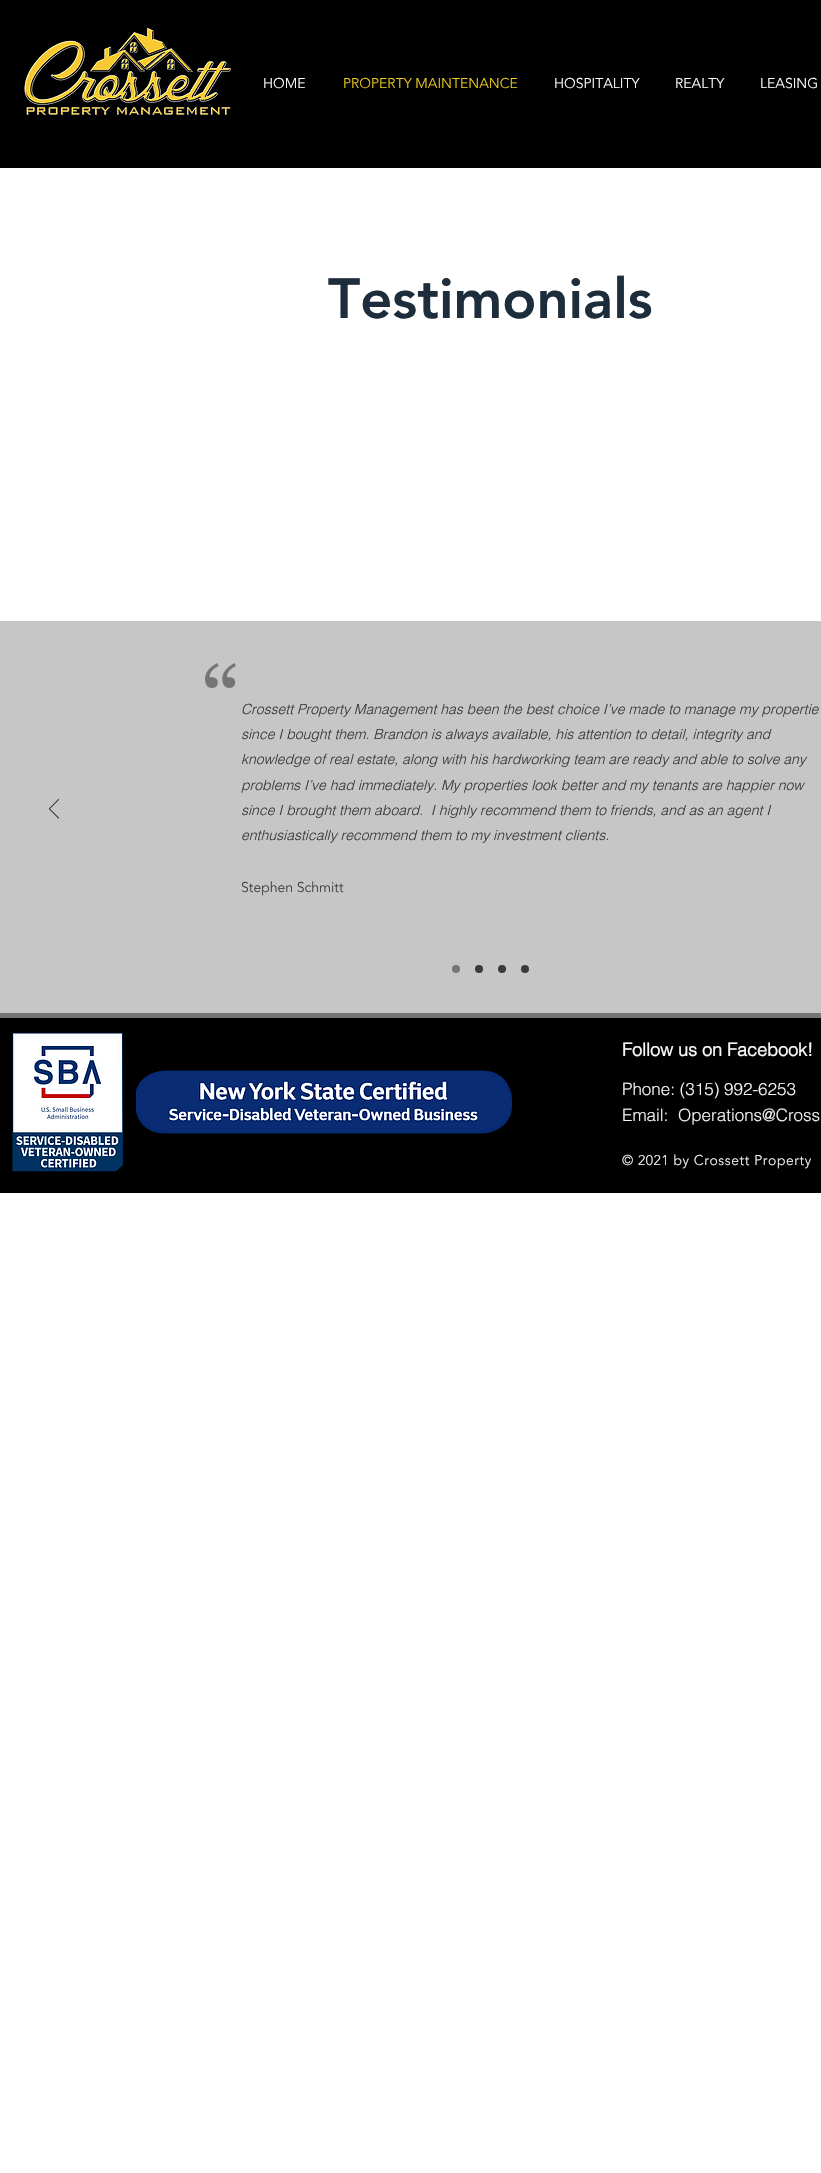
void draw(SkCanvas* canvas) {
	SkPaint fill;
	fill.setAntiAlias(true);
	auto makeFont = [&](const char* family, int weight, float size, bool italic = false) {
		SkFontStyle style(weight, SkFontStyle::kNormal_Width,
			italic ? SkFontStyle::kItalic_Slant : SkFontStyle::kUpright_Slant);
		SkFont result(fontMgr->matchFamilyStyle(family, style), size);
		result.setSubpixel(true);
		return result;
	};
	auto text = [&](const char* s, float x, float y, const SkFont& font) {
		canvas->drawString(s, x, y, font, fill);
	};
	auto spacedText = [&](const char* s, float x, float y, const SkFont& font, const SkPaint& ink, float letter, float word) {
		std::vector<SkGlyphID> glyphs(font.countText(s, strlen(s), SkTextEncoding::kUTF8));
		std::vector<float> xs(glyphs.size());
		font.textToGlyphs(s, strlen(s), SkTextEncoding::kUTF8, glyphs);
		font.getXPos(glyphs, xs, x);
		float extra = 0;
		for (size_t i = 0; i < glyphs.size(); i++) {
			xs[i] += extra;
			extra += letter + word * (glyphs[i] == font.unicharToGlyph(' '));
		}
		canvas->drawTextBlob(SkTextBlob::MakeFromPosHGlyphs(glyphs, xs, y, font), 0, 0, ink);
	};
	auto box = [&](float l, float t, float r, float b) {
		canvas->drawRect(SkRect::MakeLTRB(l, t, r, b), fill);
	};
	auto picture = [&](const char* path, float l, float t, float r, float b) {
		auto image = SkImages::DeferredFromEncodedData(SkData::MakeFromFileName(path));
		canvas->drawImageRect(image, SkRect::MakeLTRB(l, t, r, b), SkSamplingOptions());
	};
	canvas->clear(0xFFFFFFFF);
	fill.setColor(0xFF000000);
	box(0, 0, 821, 168);
	picture("image0.png", 24, 27, 231, 116);
	fill.setColor(0xFFC6C6C6);
	box(0, 621, 821, 1013);
	picture("image1.png", 49, 799, 59, 819);
	picture("image2.png", 205, 663, 236, 688);
	fill.setColor(0xFF757575);
	canvas->drawCircle(456, 969, 4, fill);
	fill.setColor(0xFF3B3A3A);
	canvas->drawCircle(479, 969, 4, fill);
	canvas->drawCircle(502, 969, 4, fill);
	canvas->drawCircle(525, 969, 4, fill);
	fill.setColor(0xFF000000);
	box(0, 1018, 821, 1193);
	fill.setColor(0xFF757575);
	box(0, 1013, 821, 1018);
	picture("image3.png", 12, 1032, 123, 1172);
	picture("image4.png", 136, 1070, 512, 1134);
	auto font1 = makeFont("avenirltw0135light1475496", 300, 14);
	fill.setColor(0xFFFFFFFF);
	text("HOME", 263, 88, font1);
	fill.setColor(0xFFEDCD1F);
	text("PROPERTY MAINTENANCE", 343, 88, font1);
	fill.setColor(0xFFFFFFFF);
	text("HOSPITALITY", 554, 88, font1);
	text("REALTY", 675, 88, font1);
	text("LEASING", 760, 88, font1);
	auto font2 = makeFont("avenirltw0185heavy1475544", 900, 56);
	fill.setColor(0xFF1E2D3B);
	text("Testimonials", 328, 318, font2);
	auto font3 = makeFont("helvetica", 300, 14, true);
	fill.setColor(0xFF3B3A3A);
	text("Crossett Property Management has been the best choice I’ve made to manage my propertie", 241, 714, font3);
	text("since I bought them. Brandon is always available, his attention to detail, integrity and", 241, 739, font3);
	text("knowledge of real estate, along with his hardworking team are ready and able to solve any", 241, 764, font3);
	text("problems I’ve had immediately. My properties look better and my tenants are happier now", 241, 790, font3);
	text("since I brought them aboard.  I highly recommend them to friends, and as an agent I", 241, 815, font3);
	text("enthusiastically recommend them to my investment clients.", 241, 840, font3);
	text("Stephen Schmitt", 241, 892, font1);
	auto font4 = makeFont("helvetica", 700, 18);
	fill.setColor(0xFFF7F7F7);
	text("Follow us on Facebook!", 622, 1056, font4);
	auto font5 = makeFont("helvetica", 300, 17);
	text("Phone: (315) 992-6253", 622, 1095, font5);
	text("Email:", 622, 1121, font5);
	text("Operations@Cross", 678, 1121, font5);
	spacedText("© 2021 by Crossett Property", 622, 1165, font1, fill, 0.55f, 0);
}
